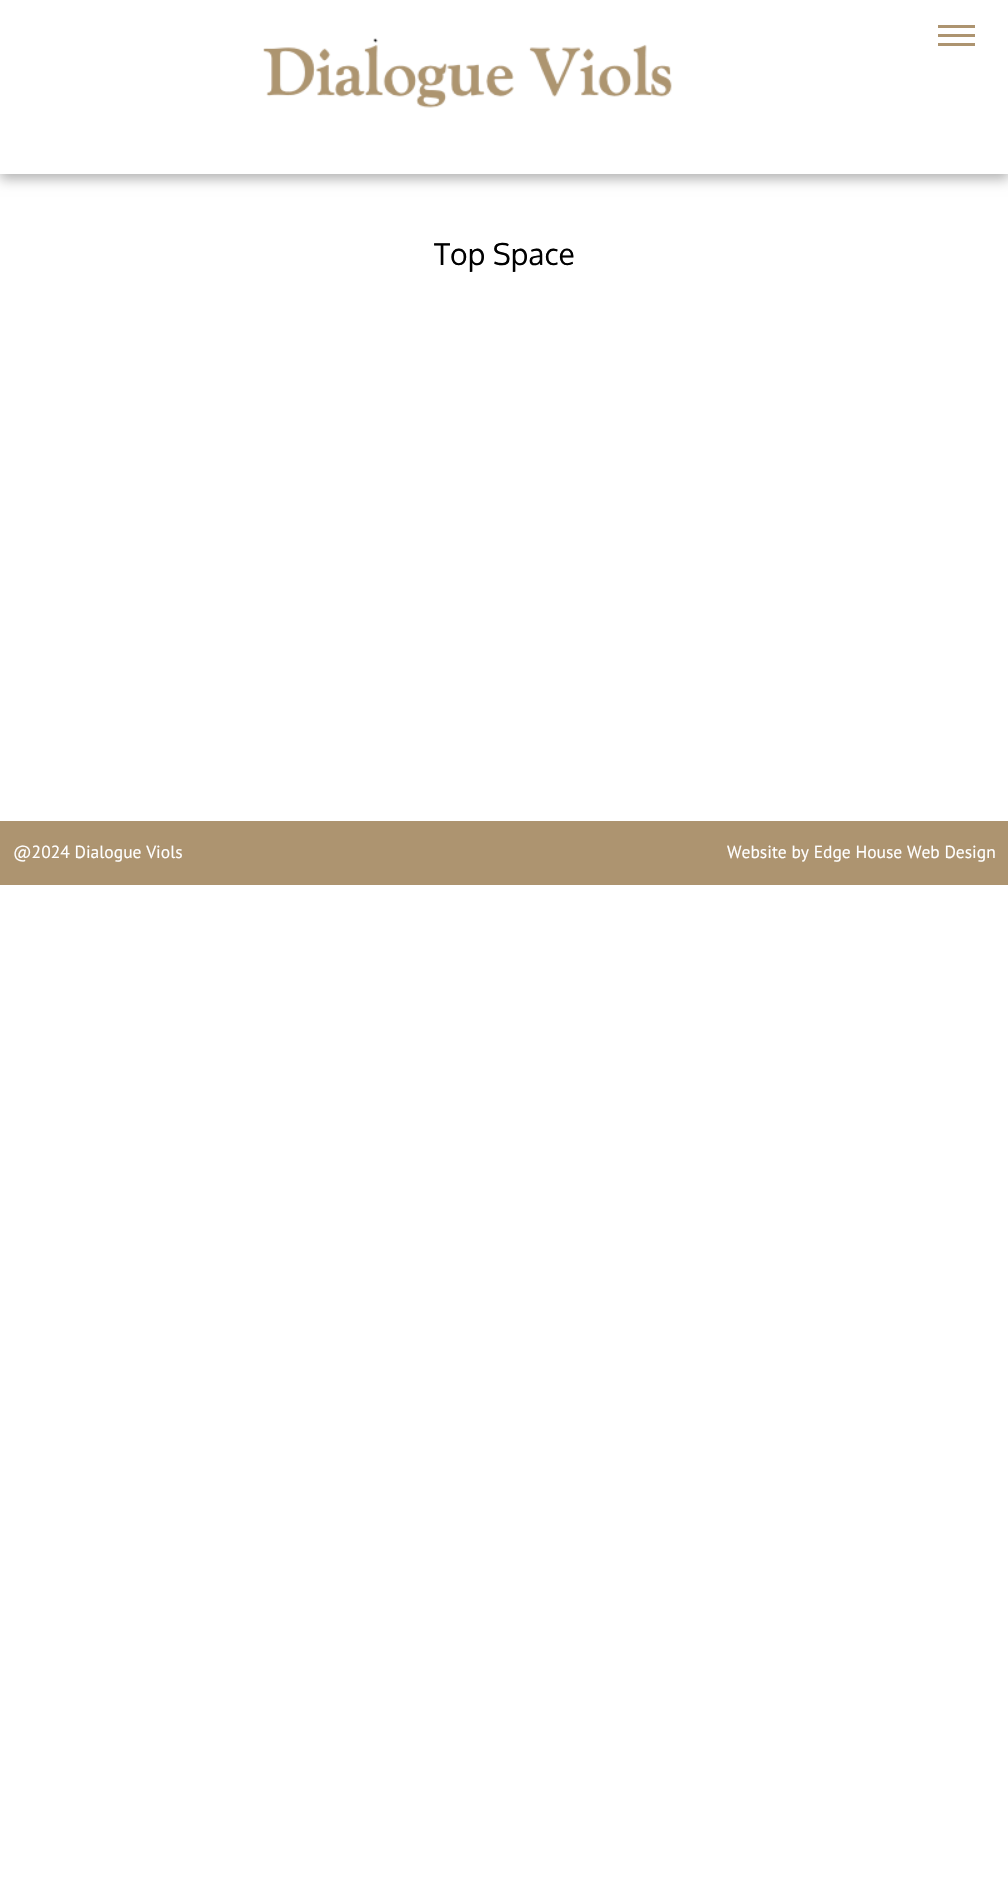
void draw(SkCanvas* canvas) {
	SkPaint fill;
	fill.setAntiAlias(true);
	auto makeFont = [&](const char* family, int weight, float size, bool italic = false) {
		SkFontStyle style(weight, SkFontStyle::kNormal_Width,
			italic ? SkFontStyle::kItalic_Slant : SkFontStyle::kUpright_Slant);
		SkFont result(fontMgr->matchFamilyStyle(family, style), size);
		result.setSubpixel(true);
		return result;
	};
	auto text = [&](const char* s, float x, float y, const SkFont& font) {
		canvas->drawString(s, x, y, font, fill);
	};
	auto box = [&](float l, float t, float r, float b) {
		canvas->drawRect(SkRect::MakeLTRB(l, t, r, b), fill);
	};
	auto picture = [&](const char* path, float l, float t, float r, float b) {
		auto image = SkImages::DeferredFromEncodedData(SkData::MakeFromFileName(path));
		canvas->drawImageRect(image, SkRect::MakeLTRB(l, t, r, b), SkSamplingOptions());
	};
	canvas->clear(0xFFFFFFFF);
	canvas->save();
	canvas->clipPath(SkPathBuilder(SkPathFillType::kEvenOdd).moveTo(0, 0).lineTo(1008, 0).lineTo(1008, 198).lineTo(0, 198).close().moveTo(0, 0).lineTo(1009, 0).lineTo(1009, 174).lineTo(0, 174).close().detach(), true);
	fill.setColor(0x4D000000);
	fill.setMaskFilter(SkMaskFilter::MakeBlur(kNormal_SkBlurStyle, 6));
	canvas->drawRect(SkRect::MakeLTRB(0, 5, 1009, 179), fill);
	fill.setMaskFilter(nullptr);
	canvas->restore();
	fill.setColor(0x99FFFFFF);
	box(0, 173, 1008, 174);
	fill.setColor(0xFFAD9470);
	box(938, 25, 975, 28);
	box(938, 34, 975, 37);
	box(938, 43, 975, 46);
	picture("image0.png", 263, 38, 672, 108);
	box(0, 821, 1008, 885);
	auto font1 = makeFont("Oxygen", 400, 30);
	fill.setColor(0xFF000000);
	text("Top Space", 434, 265, font1);
	auto font2 = makeFont("PT Sans", 400, 17.5f);
	fill.setColor(0xFFFFFFFF);
	text("@2024 Dialogue Viols", 13, 858, font2);
	text("Website by Edge House Web Design", 727, 858, font2);
}
